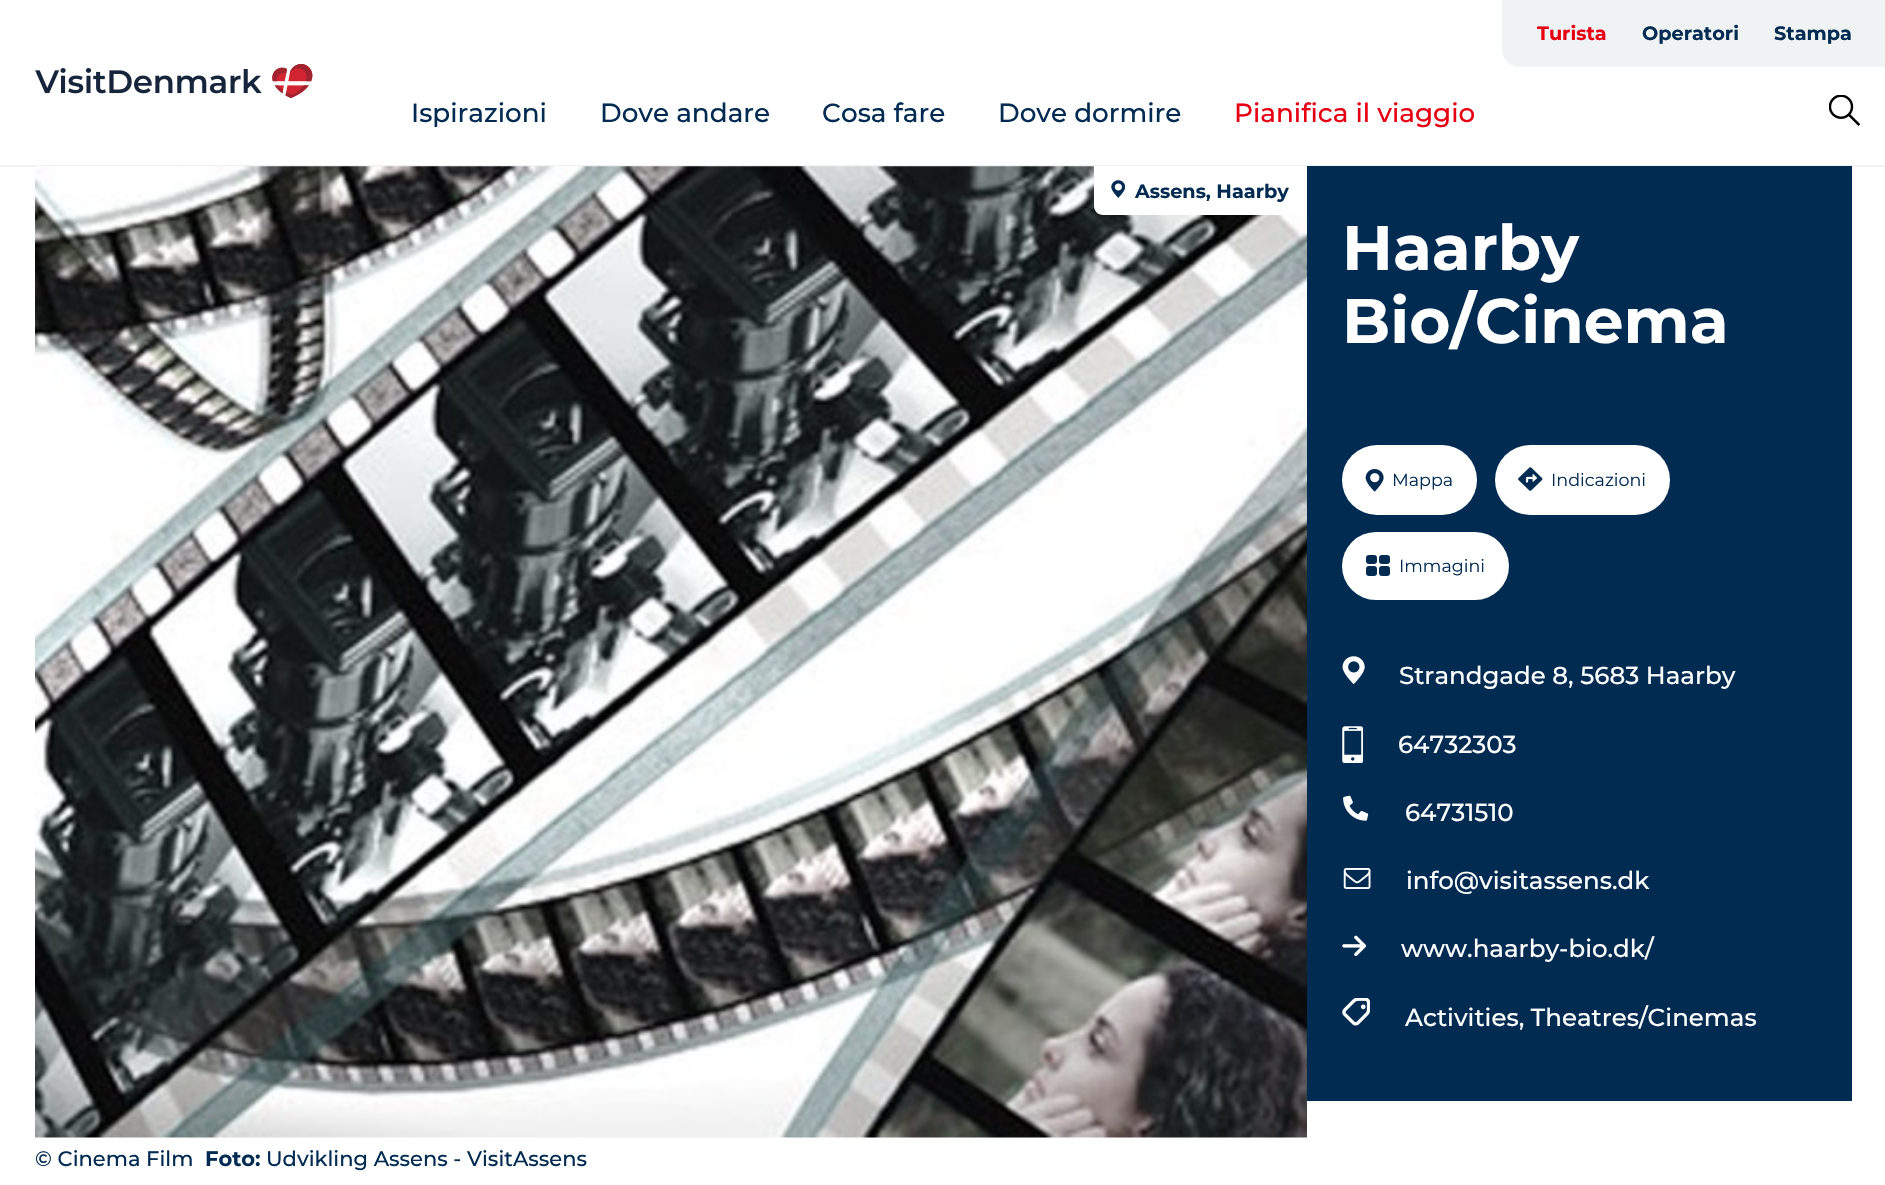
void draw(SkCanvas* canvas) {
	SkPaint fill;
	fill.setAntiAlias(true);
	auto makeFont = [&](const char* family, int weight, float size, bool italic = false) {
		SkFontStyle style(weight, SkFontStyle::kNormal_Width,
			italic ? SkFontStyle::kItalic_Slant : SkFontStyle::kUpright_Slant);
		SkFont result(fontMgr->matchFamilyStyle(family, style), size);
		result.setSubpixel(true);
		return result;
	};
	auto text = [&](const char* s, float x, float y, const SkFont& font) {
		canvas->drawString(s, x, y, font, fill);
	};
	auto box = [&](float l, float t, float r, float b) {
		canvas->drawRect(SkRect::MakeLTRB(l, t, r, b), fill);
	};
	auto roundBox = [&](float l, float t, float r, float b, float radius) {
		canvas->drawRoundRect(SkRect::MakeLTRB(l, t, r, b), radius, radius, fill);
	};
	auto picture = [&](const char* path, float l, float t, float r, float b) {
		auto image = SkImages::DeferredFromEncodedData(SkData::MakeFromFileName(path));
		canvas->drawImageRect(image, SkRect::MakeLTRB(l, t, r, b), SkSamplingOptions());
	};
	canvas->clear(0xFFFFFFFF);
	fill.setColor(0xFFF0F1F3);
	box(0, 165, 1885, 167);
	picture("image0.png", 35, 64, 313, 98);
	fill.setColor(0xFFEFF3F4);
	canvas->drawPath(SkPathBuilder().moveTo(1502, 0).lineTo(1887, 0).lineTo(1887, 67).lineTo(1520, 67).cubicTo(1510, 67, 1502, 59, 1502, 49).close().detach(), fill);
	picture("image1.png", 1829, 95, 1860, 126);
	picture("image2.png", 35, 166, 1307, 1138);
	fill.setColor(0xFFFFFFFF);
	canvas->drawPath(SkPathBuilder().moveTo(1094, 166).lineTo(1307, 166).lineTo(1307, 215).lineTo(1103, 215).cubicTo(1098, 215, 1094, 211, 1094, 206).close().detach(), fill);
	picture("image3.png", 1111, 180, 1125, 198);
	fill.setColor(0xFF022B52);
	box(1307, 166, 1852, 1101);
	fill.setColor(0xFFFFFFFF);
	roundBox(1342, 445, 1477, 515, 35);
	picture("image4.png", 1365, 469, 1384, 492);
	roundBox(1495, 445, 1670, 515, 35);
	picture("image5.png", 1518, 467, 1543, 491);
	roundBox(1342, 532, 1509, 600, 34);
	fill.setColor(0xFF022B52);
	roundBox(1379, 555, 1390, 564, 3);
	roundBox(1379, 566, 1390, 576, 3);
	roundBox(1366, 555, 1377, 564, 3);
	roundBox(1366, 566, 1377, 576, 3);
	picture("image6.png", 1342, 656, 1365, 684);
	picture("image7.png", 1342, 726, 1363, 763);
	picture("image8.png", 1343, 795, 1369, 821);
	picture("image9.png", 1343, 868, 1371, 889);
	picture("image10.png", 1342, 935, 1366, 957);
	picture("image11.png", 1342, 998, 1370, 1026);
	auto font1 = makeFont("Montserrat", 700, 19.25f);
	fill.setColor(0xFFE70013);
	text("Turista", 1537, 40, font1);
	fill.setColor(0xFF022B52);
	text("Operatori", 1642, 40, font1);
	text("Stampa", 1774, 40, font1);
	auto font2 = makeFont("Montserrat", 500, 26.25f);
	text("Ispirazioni", 411, 122, font2);
	text("Dove andare", 600, 122, font2);
	text("Cosa fare", 822, 122, font2);
	text("Dove dormire", 998, 122, font2);
	fill.setColor(0xFFE70013);
	text("Pianifica il viaggio", 1234, 122, font2);
	fill.setColor(0xFF022B52);
	text("Assens, Haarby", 1135, 198, font1);
	auto font3 = makeFont("Montserrat", 500, 21);
	text("© Cinema Film", 35, 1166, font3);
	auto font4 = makeFont("Montserrat", 700, 21);
	text("Foto:", 205, 1166, font4);
	text("Udvikling Assens - VisitAssens", 266, 1166, font3);
	auto font5 = makeFont("Montserrat", 700, 63);
	fill.setColor(0xFFFFFFFF);
	text("Haarby", 1342, 270, font5);
	text("Bio/Cinema", 1342, 343, font5);
	auto font6 = makeFont("Montserrat", 400, 17.5f);
	fill.setColor(0xFF022B52);
	text("Mappa", 1392, 486, font6);
	text("Indicazioni", 1551, 486, font6);
	text("Immagini", 1399, 572, font6);
	auto font7 = makeFont("Montserrat", 500, 24.5f);
	fill.setColor(0xFFFFFFFF);
	text("Strandgade 8, 5683 Haarby", 1399, 684, font7);
	text("64732303", 1398, 753, font7);
	text("64731510", 1405, 821, font7);
	text("info@visitassens.dk", 1406, 889, font7);
	text("www.haarby-bio.dk/", 1401, 957, font7);
	text("Activities, Theatres/Cinemas", 1405, 1026, font7);
}
